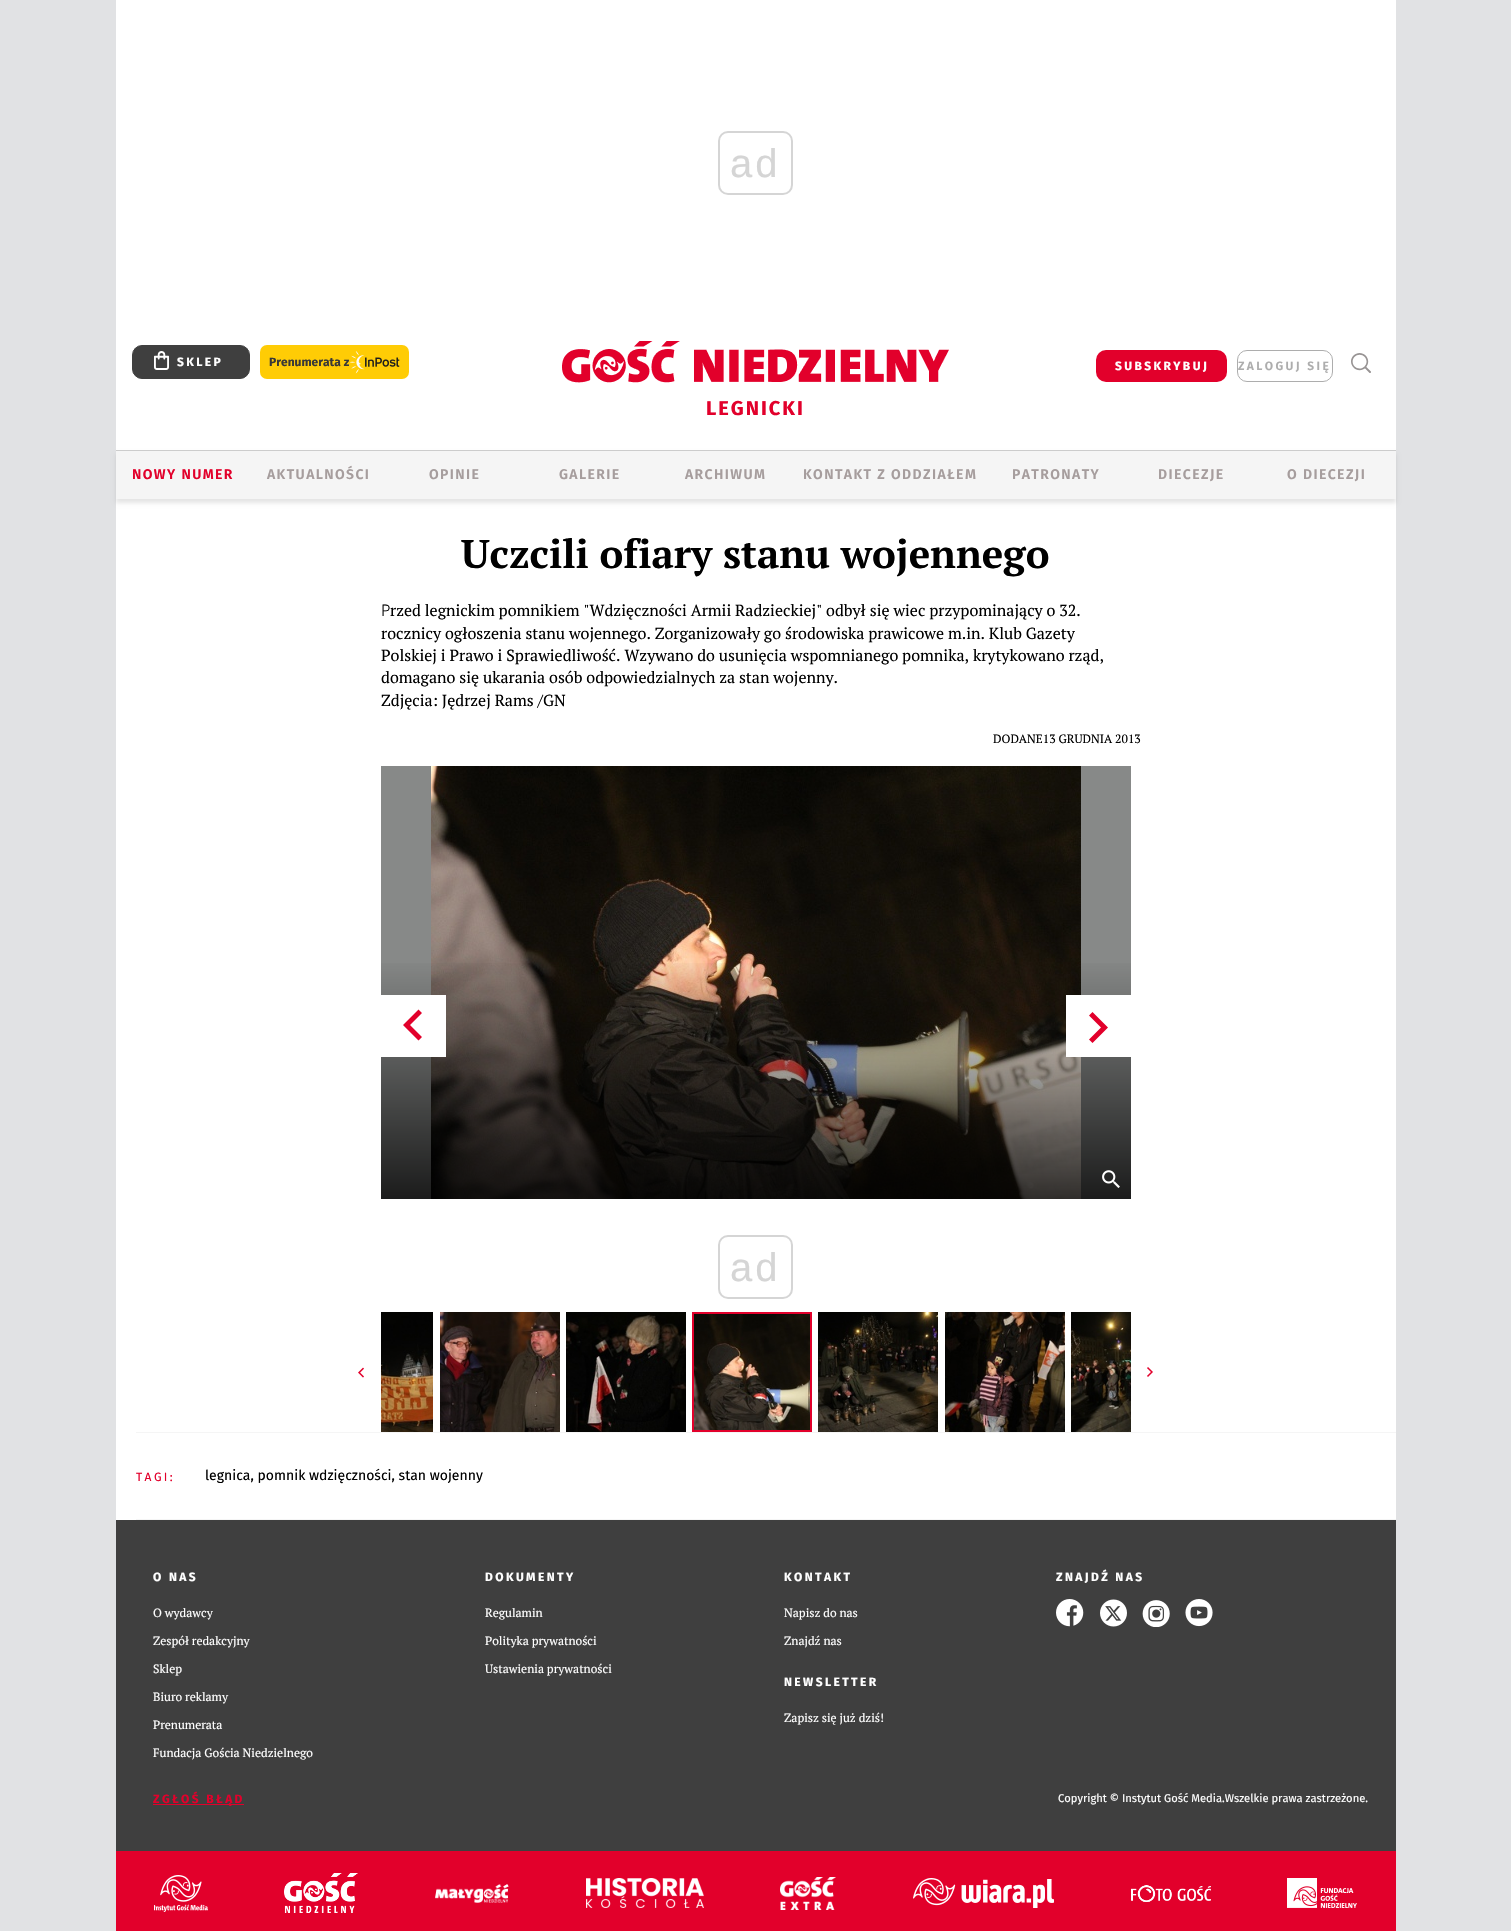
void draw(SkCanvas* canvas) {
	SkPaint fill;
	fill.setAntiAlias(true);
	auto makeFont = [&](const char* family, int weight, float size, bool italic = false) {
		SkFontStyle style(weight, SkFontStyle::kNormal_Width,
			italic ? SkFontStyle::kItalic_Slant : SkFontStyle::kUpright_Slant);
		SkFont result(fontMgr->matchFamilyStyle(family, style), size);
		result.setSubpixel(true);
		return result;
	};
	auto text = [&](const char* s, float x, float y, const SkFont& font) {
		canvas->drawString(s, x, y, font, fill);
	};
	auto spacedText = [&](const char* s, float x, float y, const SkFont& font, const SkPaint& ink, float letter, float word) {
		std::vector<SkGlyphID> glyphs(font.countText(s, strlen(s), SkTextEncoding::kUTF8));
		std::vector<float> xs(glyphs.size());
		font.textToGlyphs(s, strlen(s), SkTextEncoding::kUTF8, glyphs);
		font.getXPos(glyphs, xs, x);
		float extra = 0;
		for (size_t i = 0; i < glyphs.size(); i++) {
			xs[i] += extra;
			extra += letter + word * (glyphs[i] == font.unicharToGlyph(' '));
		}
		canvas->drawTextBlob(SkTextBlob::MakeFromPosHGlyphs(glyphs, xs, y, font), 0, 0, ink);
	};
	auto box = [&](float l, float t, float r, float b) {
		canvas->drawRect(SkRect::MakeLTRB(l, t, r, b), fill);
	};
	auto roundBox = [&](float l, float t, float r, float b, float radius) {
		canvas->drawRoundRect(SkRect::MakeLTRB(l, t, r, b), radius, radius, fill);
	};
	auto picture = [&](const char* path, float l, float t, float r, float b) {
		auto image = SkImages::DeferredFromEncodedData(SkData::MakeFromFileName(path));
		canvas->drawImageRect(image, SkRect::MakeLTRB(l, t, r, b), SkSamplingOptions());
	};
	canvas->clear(0xFFE1E2E4);
	fill.setColor(0xFFFFFFFF);
	box(116, 0, 1396, 325);
	fill.setStyle(SkPaint::kStroke_Style);
	fill.setStrokeWidth(2);
	fill.setColor(0xFFD5D5D5);
	canvas->drawRoundRect(SkRect::MakeLTRB(719, 132, 792, 194), 9, 9, fill);
	fill.setStyle(SkPaint::kFill_Style);
	fill.setColor(0xFFF5F5F5);
	box(116, 451, 1396, 499);
	fill.setColor(0xFFFFFFFF);
	box(116, 325, 1396, 450);
	fill.setColor(0xFF3F3F3F);
	canvas->drawRoundRect(SkRect::MakeLTRB(132.5f, 345.5f, 249.5f, 378.5f), 9.5f, 9.5f, fill);
	fill.setStyle(SkPaint::kStroke_Style);
	fill.setStrokeWidth(1);
	canvas->drawRoundRect(SkRect::MakeLTRB(132.5f, 345.5f, 249.5f, 378.5f), 9.5f, 9.5f, fill);
	picture("image0.png", 154, 351, 169, 370);
	fill.setStyle(SkPaint::kFill_Style);
	fill.setColor(0xFFFFCC05);
	roundBox(260, 345, 409, 379, 7);
	picture("image1.png", 350, 351, 400, 374);
	fill.setColor(0xFFE2002B);
	roundBox(1096, 350, 1227, 382, 10);
	fill.setStyle(SkPaint::kStroke_Style);
	fill.setColor(0xFFADADAD);
	canvas->drawRoundRect(SkRect::MakeLTRB(1237.5f, 350.5f, 1332.5f, 381.5f), 9.5f, 9.5f, fill);
	picture("image2.png", 1351, 353, 1371, 373);
	picture("image3.png", 562, 341, 949, 383);
	fill.setStyle(SkPaint::kFill_Style);
	fill.setColor(0xFFFFFFFF);
	box(116, 499, 1396, 1520);
	canvas->save();
	canvas->clipPath(SkPathBuilder(SkPathFillType::kEvenOdd).moveTo(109, 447).lineTo(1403, 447).lineTo(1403, 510).lineTo(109, 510).close().moveTo(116, 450).lineTo(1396, 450).lineTo(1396, 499).lineTo(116, 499).close().detach(), true);
	fill.setColor(0x1A000000);
	fill.setMaskFilter(SkMaskFilter::MakeBlur(kNormal_SkBlurStyle, 2));
	canvas->drawRect(SkRect::MakeLTRB(116, 454, 1396, 503), fill);
	fill.setMaskFilter(nullptr);
	canvas->restore();
	fill.setColor(0xFFCCCCCC);
	box(116, 450, 1396, 451);
	fill.setColor(0xFF878988);
	box(381, 766, 1131, 1199);
	picture("image4.png", 431, 766, 1081, 1199);
	{
		const SkColor colors[] = {0xCC000000, 0x00000000};
		const float stops[] = {0, 1};
		const SkPoint ends[] = {{756, 1199}, {756, 956}};
		fill.setShader(SkGradientShader::MakeLinear(ends, colors, stops, 2, SkTileMode::kClamp));
		fill.setAlpha(255);
	}
	box(381, 963, 1131, 1199);
	picture("image5.png", 1102, 1170, 1120, 1188);
	fill.setShader(nullptr);
	fill.setColor(0xFFFFFFFF);
	box(381, 995, 446, 1057);
	fill.setColor(0xFFE2002B);
	canvas->drawPath(SkPathBuilder().moveTo(422, 1037).lineTo(418.5f, 1040.5f).lineTo(403, 1025).lineTo(418.5f, 1009.5f).lineTo(422, 1013).lineTo(410, 1025).close().detach(), fill);
	fill.setColor(0xFFFFFFFF);
	box(1066, 995, 1131, 1057);
	fill.setColor(0xFFE2002B);
	canvas->drawPath(SkPathBuilder().moveTo(1089, 1015.5f).lineTo(1092.5f, 1012).lineTo(1108, 1027.5f).lineTo(1092.5f, 1043).lineTo(1089, 1039.5f).lineTo(1101, 1027.5f).close().detach(), fill);
	fill.setStyle(SkPaint::kStroke_Style);
	fill.setStrokeWidth(2);
	fill.setColor(0xFFD5D5D5);
	canvas->drawRoundRect(SkRect::MakeLTRB(719, 1236, 792, 1298), 9, 9, fill);
	picture("image6.png", 358, 1367, 364, 1378);
	picture("image7.png", 381, 1312, 433, 1432);
	picture("image8.png", 440, 1312, 560, 1432);
	picture("image9.png", 566, 1312, 686, 1432);
	picture("image10.png", 694, 1314, 810, 1430);
	fill.setColor(0xFFE2002B);
	canvas->drawRect(SkRect::MakeLTRB(693, 1313, 811, 1431), fill);
	picture("image11.png", 818, 1312, 938, 1432);
	picture("image12.png", 945, 1312, 1065, 1432);
	picture("image13.png", 1071, 1312, 1131, 1432);
	picture("image14.png", 1147, 1367, 1153, 1377);
	fill.setStyle(SkPaint::kFill_Style);
	fill.setColor(0xFFF5F5F5);
	box(136, 1432, 1396, 1433);
	box(136, 1519, 1396, 1520);
	fill.setColor(0xFF3F3F3F);
	box(116, 1520, 1396, 1851);
	picture("image15.png", 1056, 1599, 1084, 1627);
	picture("image16.png", 1100, 1599, 1127, 1627);
	picture("image17.png", 1142, 1600, 1170, 1627);
	picture("image18.png", 1185, 1599, 1213, 1627);
	fill.setColor(0xFFE2002B);
	box(116, 1851, 1396, 1931);
	picture("image19.png", 154, 1875, 208, 1912);
	picture("image20.png", 284, 1873, 358, 1913);
	picture("image21.png", 435, 1884, 509, 1903);
	picture("image22.png", 586, 1878, 704, 1908);
	picture("image23.png", 780, 1877, 836, 1910);
	picture("image24.png", 913, 1878, 1054, 1908);
	picture("image25.png", 1131, 1885, 1211, 1902);
	picture("image26.png", 1287, 1878, 1357, 1908);
	box(153, 1804, 244, 1805);
	auto font1 = makeFont("Liberation Sans", 400, 40);
	fill.setColor(0xFFD5D5D5);
	spacedText("ad", 730, 177, font1, fill, 3, 0);
	auto font2 = makeFont("Fira Sans", 700, 12);
	fill.setColor(0xFFFFFFFF);
	spacedText("SKLEP", 177, 366, font2, fill, 2.4f, 0);
	auto font3 = makeFont("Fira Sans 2", 700, 12);
	fill.setColor(0xFF383838);
	text("Prenumerata z", 269, 366, font3);
	fill.setColor(0xFFFFFFFF);
	spacedText("SUBSKRYBUJ", 1115, 370, font2, fill, 2.4f, 0);
	auto font4 = makeFont("Fira Sans", 600, 12);
	fill.setColor(0xFFADADAD);
	spacedText("ZALOGUJ SIĘ", 1238, 370, font4, fill, 2.4f, 0);
	auto font5 = makeFont("Fira Sans", 700, 20);
	fill.setColor(0xFFE2002B);
	spacedText("LEGNICKI", 706, 415, font5, fill, 2, 0);
	auto font6 = makeFont("Fira Sans", 600, 14);
	spacedText("NOWY NUMER", 132, 479, font6, fill, 1.4f, 0);
	fill.setColor(0xFFA69D9D);
	spacedText("AKTUALNOŚCI", 267, 479, font6, fill, 1.4f, 0);
	spacedText("OPINIE", 429, 479, font6, fill, 1.4f, 0);
	spacedText("GALERIE", 559, 479, font6, fill, 1.4f, 0);
	spacedText("ARCHIWUM", 685, 479, font6, fill, 1.4f, 0);
	spacedText("KONTAKT Z ODDZIAŁEM", 803, 479, font6, fill, 1.4f, 0);
	spacedText("PATRONATY", 1012, 479, font6, fill, 1.4f, 0);
	spacedText("DIECEZJE", 1158, 479, font6, fill, 1.4f, 0);
	spacedText("O DIECEZJI", 1287, 479, font6, fill, 1.4f, 0);
	auto font7 = makeFont("PT Serif", 700, 40);
	fill.setColor(0xFF000000);
	text("Uczcili ofiary stanu wojennego", 461, 568, font7);
	auto font8 = makeFont("Noto Sans", 300, 16);
	text("P", 381, 616, font8);
	auto font9 = makeFont("PT Serif", 400, 16);
	text("rzed legnickim pomnikiem \"Wdzięczności Armii Radzieckiej\" odbył się wiec przypominający o 32.", 390, 616, font9);
	text("rocznicy ogłoszenia stanu wojennego. Zorganizowały go środowiska prawicowe m.in. Klub Gazety", 381, 639, font9);
	text("Polskiej i Prawo i Sprawiedliwość. Wzywano do usunięcia wspomnianego pomnika, krytykowano rząd,", 381, 661, font9);
	text("domagano się ukarania osób odpowiedzialnych za stan wojenny.", 381, 683, font9);
	text("Zdjęcia: Jędrzej Rams /GN", 381, 706, font9);
	auto font10 = makeFont("PT Serif", 400, 12);
	text("DODANE13 GRUDNIA 2013", 993, 743, font10);
	fill.setColor(0xFFD5D5D5);
	spacedText("ad", 730, 1281, font1, fill, 3, 0);
	auto font11 = makeFont("Fira Sans 2", 400, 12);
	fill.setColor(0xFFE2002B);
	spacedText("TAGI:", 136, 1481, font11, fill, 2.4f, 0);
	auto font12 = makeFont("Fira Sans", 400, 14);
	fill.setColor(0xFF000000);
	text("legnica, pomnik wdzięczności, stan wojenny", 205, 1480, font12);
	fill.setColor(0xFFFFFFFF);
	spacedText("O NAS", 153, 1581, font2, fill, 2.4f, 0);
	text("O wydawcy", 153, 1617, font10);
	text("Zespół redakcyjny", 153, 1645, font10);
	text("Sklep", 153, 1673, font10);
	text("Biuro reklamy", 153, 1701, font10);
	text("Prenumerata", 153, 1729, font10);
	text("Fundacja Gościa Niedzielnego", 153, 1757, font10);
	spacedText("DOKUMENTY", 485, 1581, font2, fill, 2.4f, 0);
	text("Regulamin", 485, 1617, font10);
	text("Polityka prywatności", 485, 1645, font10);
	text("Ustawienia prywatności", 485, 1673, font10);
	spacedText("KONTAKT", 784, 1581, font2, fill, 2.4f, 0);
	text("Napisz do nas", 784, 1617, font10);
	text("Znajdź nas", 784, 1645, font10);
	spacedText("NEWSLETTER", 784, 1686, font2, fill, 2.4f, 0);
	text("Zapisz się już dziś!", 784, 1722, font10);
	spacedText("ZNAJDŹ NAS", 1056, 1581, font2, fill, 2.4f, 0);
	fill.setColor(0xFFE2002B);
	spacedText("ZGŁOŚ BŁĄD", 153, 1803, font2, fill, 2.4f, 0);
	auto font13 = makeFont("Fira Sans", 400, 11.2f);
	fill.setColor(0xFFFFFFFF);
	text("Copyright © Instytut Gość Media.Wszelkie prawa zastrzeżone.", 1058, 1802, font13);
}
